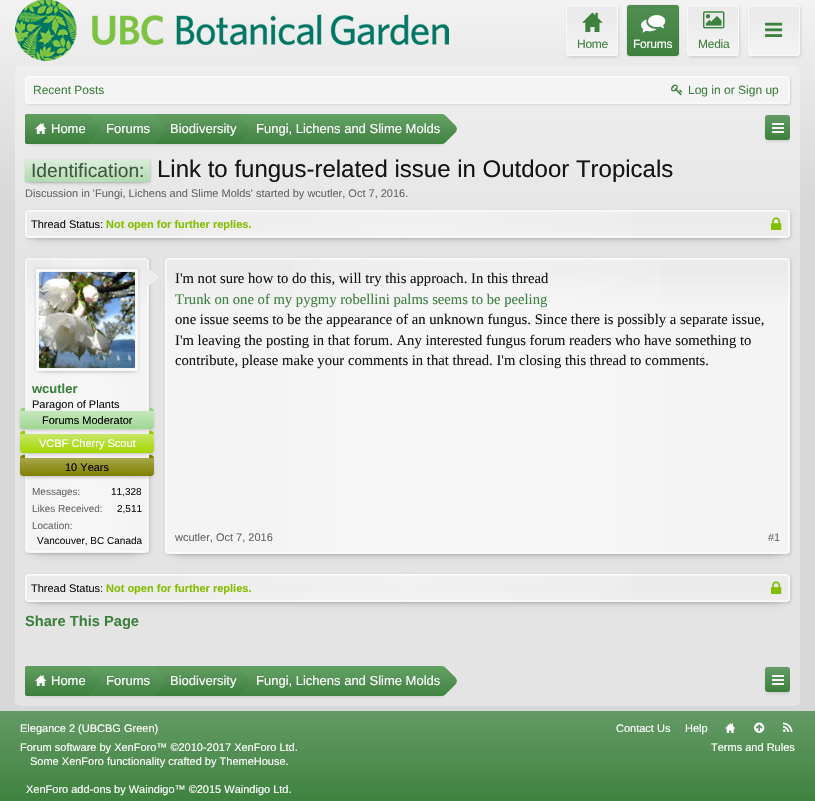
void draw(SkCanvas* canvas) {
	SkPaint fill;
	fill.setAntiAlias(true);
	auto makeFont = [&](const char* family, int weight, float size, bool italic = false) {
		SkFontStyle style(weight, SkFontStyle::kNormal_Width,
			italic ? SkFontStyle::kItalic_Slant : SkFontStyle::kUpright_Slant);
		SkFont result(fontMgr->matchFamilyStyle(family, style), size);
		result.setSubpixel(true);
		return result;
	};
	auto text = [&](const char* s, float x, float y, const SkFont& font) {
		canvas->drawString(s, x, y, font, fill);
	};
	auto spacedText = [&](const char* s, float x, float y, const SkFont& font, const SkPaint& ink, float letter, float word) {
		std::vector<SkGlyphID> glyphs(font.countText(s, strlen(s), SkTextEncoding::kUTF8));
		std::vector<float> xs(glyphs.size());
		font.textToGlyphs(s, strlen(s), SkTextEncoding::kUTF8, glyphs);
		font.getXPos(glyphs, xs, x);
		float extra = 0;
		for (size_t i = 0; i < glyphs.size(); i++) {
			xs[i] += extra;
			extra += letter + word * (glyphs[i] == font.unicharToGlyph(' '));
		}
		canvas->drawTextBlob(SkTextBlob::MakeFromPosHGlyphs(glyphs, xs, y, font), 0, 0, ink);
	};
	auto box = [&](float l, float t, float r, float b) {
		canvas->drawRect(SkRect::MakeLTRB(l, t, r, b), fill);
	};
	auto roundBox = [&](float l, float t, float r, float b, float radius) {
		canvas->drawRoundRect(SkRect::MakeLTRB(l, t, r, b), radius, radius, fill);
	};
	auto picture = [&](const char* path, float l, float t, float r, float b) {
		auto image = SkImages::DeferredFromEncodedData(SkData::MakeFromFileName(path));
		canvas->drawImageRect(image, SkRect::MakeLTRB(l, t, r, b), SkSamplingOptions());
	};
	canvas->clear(0xFFFFFFFF);
	{
		const SkColor colors[] = {0xFFF3F3F3, 0xFFD8D8D8};
		const float stops[] = {0, 0.25f};
		const SkPoint ends[] = {{407, -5}, {408, 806}};
		fill.setShader(SkGradientShader::MakeLinear(ends, colors, stops, 2, SkTileMode::kClamp));
		fill.setAlpha(255);
	}
	box(0, 0, 815, 711);
	picture("image0.png", 15, 0, 449, 61);
	fill.setShader(nullptr);
	fill.setColor(0x1A000000);
	fill.setMaskFilter(SkMaskFilter::MakeBlur(kNormal_SkBlurStyle, 1.5f));
	canvas->drawRect(SkRect::MakeLTRB(569, 11, 615, 56), fill);
	fill.setMaskFilter(nullptr);
	fill.setMaskFilter(SkMaskFilter::MakeBlur(kNormal_SkBlurStyle, 1.5f));
	canvas->drawRoundRect(SkRect::MakeLTRB(567, 6, 619, 57), 3, 3, fill);
	fill.setMaskFilter(nullptr);
	{
		const SkColor colors[] = {0xFFECECEC, 0xFFEAEAEA, 0xFFF4F4F4};
		const float stops[] = {0, 0.2f, 0.98f};
		const SkPoint ends[] = {{592, 5}, {592, 56}};
		fill.setShader(SkGradientShader::MakeLinear(ends, colors, stops, 3, SkTileMode::kClamp));
		fill.setAlpha(255);
	}
	roundBox(566, 5, 618, 56, 3);
	fill.setStyle(SkPaint::kStroke_Style);
	fill.setStrokeWidth(1);
	fill.setShader(nullptr);
	fill.setColor(0x4DFFFFFF);
	canvas->drawRoundRect(SkRect::MakeLTRB(566.5f, 5.5f, 617.5f, 55.5f), 2.5f, 2.5f, fill);
	fill.setColor(0xFFF9F9F9);
	canvas->drawRoundRect(SkRect::MakeLTRB(566.5f, 5.5f, 617.5f, 55.5f), 2.5f, 2.5f, fill);
	picture("image1.png", 582, 12, 603, 32);
	fill.setStyle(SkPaint::kFill_Style);
	fill.setColor(0x1A000000);
	fill.setMaskFilter(SkMaskFilter::MakeBlur(kNormal_SkBlurStyle, 1.5f));
	canvas->drawRect(SkRect::MakeLTRB(630, 11, 676, 56), fill);
	fill.setMaskFilter(nullptr);
	fill.setStyle(SkPaint::kStroke_Style);
	fill.setColor(0x08000000);
	canvas->drawRect(SkRect::MakeLTRB(626.5f, 4.5f, 679.5f, 56.5f), fill);
	fill.setStyle(SkPaint::kFill_Style);
	fill.setColor(0xFF3D813E);
	roundBox(627, 5, 679, 56, 3);
	{
		const SkColor colors[] = {0x1AFFFFFF, 0x00FFFFFF};
		const float stops[] = {0, 1};
		const SkPoint ends[] = {{653, 5}, {653, 56}};
		fill.setShader(SkGradientShader::MakeLinear(ends, colors, stops, 2, SkTileMode::kClamp));
		fill.setAlpha(255);
	}
	roundBox(627, 5, 679, 56, 3);
	fill.setStyle(SkPaint::kStroke_Style);
	fill.setShader(nullptr);
	fill.setColor(0x08000000);
	canvas->drawRect(SkRect::MakeLTRB(627.5f, 5.5f, 678.5f, 55.5f), fill);
	picture("image2.png", 641, 15, 666, 33);
	fill.setStyle(SkPaint::kFill_Style);
	fill.setColor(0x1A000000);
	fill.setMaskFilter(SkMaskFilter::MakeBlur(kNormal_SkBlurStyle, 1.5f));
	canvas->drawRect(SkRect::MakeLTRB(690, 11, 736, 56), fill);
	fill.setMaskFilter(nullptr);
	fill.setMaskFilter(SkMaskFilter::MakeBlur(kNormal_SkBlurStyle, 1.5f));
	canvas->drawRoundRect(SkRect::MakeLTRB(688, 6, 740, 57), 3, 3, fill);
	fill.setMaskFilter(nullptr);
	{
		const SkColor colors[] = {0xFFECECEC, 0xFFEAEAEA, 0xFFF4F4F4};
		const float stops[] = {0, 0.2f, 0.98f};
		const SkPoint ends[] = {{713, 5}, {713, 56}};
		fill.setShader(SkGradientShader::MakeLinear(ends, colors, stops, 3, SkTileMode::kClamp));
		fill.setAlpha(255);
	}
	roundBox(687, 5, 739, 56, 3);
	fill.setStyle(SkPaint::kStroke_Style);
	fill.setShader(nullptr);
	fill.setColor(0x4DFFFFFF);
	canvas->drawRoundRect(SkRect::MakeLTRB(687.5f, 5.5f, 738.5f, 55.5f), 2.5f, 2.5f, fill);
	fill.setColor(0xFFF9F9F9);
	canvas->drawRoundRect(SkRect::MakeLTRB(687.5f, 5.5f, 738.5f, 55.5f), 2.5f, 2.5f, fill);
	picture("image3.png", 703, 11, 725, 29);
	fill.setStyle(SkPaint::kFill_Style);
	fill.setColor(0x1A000000);
	fill.setMaskFilter(SkMaskFilter::MakeBlur(kNormal_SkBlurStyle, 1.5f));
	canvas->drawRect(SkRect::MakeLTRB(751, 11, 797, 56), fill);
	fill.setMaskFilter(nullptr);
	fill.setMaskFilter(SkMaskFilter::MakeBlur(kNormal_SkBlurStyle, 1.5f));
	canvas->drawRoundRect(SkRect::MakeLTRB(749, 6, 801, 57), 3, 3, fill);
	fill.setMaskFilter(nullptr);
	{
		const SkColor colors[] = {0xFFECECEC, 0xFFEAEAEA, 0xFFF4F4F4};
		const float stops[] = {0, 0.2f, 0.98f};
		const SkPoint ends[] = {{774, 5}, {774, 56}};
		fill.setShader(SkGradientShader::MakeLinear(ends, colors, stops, 3, SkTileMode::kClamp));
		fill.setAlpha(255);
	}
	roundBox(748, 5, 800, 56, 3);
	fill.setStyle(SkPaint::kStroke_Style);
	fill.setShader(nullptr);
	fill.setColor(0x4DFFFFFF);
	canvas->drawRoundRect(SkRect::MakeLTRB(748.5f, 5.5f, 799.5f, 55.5f), 2.5f, 2.5f, fill);
	fill.setColor(0xFFF9F9F9);
	canvas->drawRoundRect(SkRect::MakeLTRB(748.5f, 5.5f, 799.5f, 55.5f), 2.5f, 2.5f, fill);
	picture("image4.png", 765, 22, 783, 37);
	fill.setStyle(SkPaint::kFill_Style);
	fill.setColor(0xFFE4E4E4);
	roundBox(15, 66, 800, 706, 5);
	{
		const SkColor colors[] = {0x66FFFFFF, 0x00FFFFFF};
		const float stops[] = {0, 0.31f};
		const SkPoint ends[] = {{407, 66}, {408, 706}};
		fill.setShader(SkGradientShader::MakeLinear(ends, colors, stops, 2, SkTileMode::kClamp));
		fill.setAlpha(255);
	}
	roundBox(15, 66, 800, 706, 5);
	fill.setShader(nullptr);
	fill.setColor(0x1A000000);
	fill.setMaskFilter(SkMaskFilter::MakeBlur(kNormal_SkBlurStyle, 1));
	canvas->drawRoundRect(SkRect::MakeLTRB(26, 77, 791, 105), 3, 3, fill);
	fill.setMaskFilter(nullptr);
	fill.setColor(0xFFF4F4F4);
	roundBox(25, 76, 790, 104, 3);
	fill.setStyle(SkPaint::kStroke_Style);
	fill.setColor(0xFFFAFAFA);
	canvas->drawRoundRect(SkRect::MakeLTRB(26.5f, 77.5f, 788.5f, 102.5f), 1.5f, 1.5f, fill);
	fill.setColor(0xFFF9F9F9);
	canvas->drawRoundRect(SkRect::MakeLTRB(25.5f, 76.5f, 789.5f, 103.5f), 2.5f, 2.5f, fill);
	picture("image5.png", 671, 84, 683, 96);
	picture("image6.png", 45, 114, 86, 147);
	picture("image7.png", 25, 114, 45, 147);
	picture("image8.png", 35, 123, 47, 134);
	picture("image9.png", 86, 114, 100, 144);
	picture("image10.png", 106, 114, 150, 147);
	picture("image11.png", 86, 114, 106, 147);
	picture("image12.png", 150, 114, 164, 144);
	picture("image13.png", 170, 114, 236, 147);
	picture("image14.png", 150, 114, 170, 147);
	picture("image15.png", 236, 114, 250, 144);
	picture("image16.png", 256, 114, 440, 147);
	picture("image11.png", 236, 114, 256, 147);
	picture("image17.png", 440, 114, 457, 146);
	fill.setStyle(SkPaint::kFill_Style);
	fill.setColor(0x1A000000);
	fill.setMaskFilter(SkMaskFilter::MakeBlur(kNormal_SkBlurStyle, 1.5f));
	canvas->drawRect(SkRect::MakeLTRB(768, 121, 787, 140), fill);
	fill.setMaskFilter(nullptr);
	canvas->save();
	canvas->clipRect(SkRect::MakeLTRB(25, 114, 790, 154));
	fill.setMaskFilter(SkMaskFilter::MakeBlur(kNormal_SkBlurStyle, 1.5f));
	canvas->drawRoundRect(SkRect::MakeLTRB(766, 116, 791, 141), 3, 3, fill);
	fill.setMaskFilter(nullptr);
	canvas->restore();
	fill.setColor(0xFF3D813E);
	roundBox(765, 115, 790, 140, 3);
	{
		const SkColor colors[] = {0x33FFFFFF, 0x00FFFFFF};
		const float stops[] = {0, 1};
		const SkPoint ends[] = {{778, 115}, {778, 140}};
		fill.setShader(SkGradientShader::MakeLinear(ends, colors, stops, 2, SkTileMode::kClamp));
		fill.setAlpha(255);
	}
	roundBox(765, 115, 790, 140, 3);
	picture("image18.png", 772, 123, 784, 133);
	fill.setShader(nullptr);
	fill.setColor(0x33000000);
	fill.setMaskFilter(SkMaskFilter::MakeBlur(kNormal_SkBlurStyle, 2.5f));
	canvas->drawRect(SkRect::MakeLTRB(30, 170, 145, 182), fill);
	fill.setMaskFilter(nullptr);
	fill.setColor(0x1A000000);
	fill.setMaskFilter(SkMaskFilter::MakeBlur(kNormal_SkBlurStyle, 1));
	canvas->drawRoundRect(SkRect::MakeLTRB(25, 160, 150, 182), 2, 2, fill);
	fill.setMaskFilter(nullptr);
	fill.setMaskFilter(SkMaskFilter::MakeBlur(kNormal_SkBlurStyle, 1));
	canvas->drawRoundRect(SkRect::MakeLTRB(26, 161, 151, 183), 2, 2, fill);
	fill.setMaskFilter(nullptr);
	fill.setColor(0xFFB1DAB0);
	roundBox(25, 160, 150, 182, 2);
	{
		const SkColor colors[] = {0x00FFFFFF, 0x1AFFFFFF, 0x00FFFFFF};
		const float stops[] = {0, 0.5f, 1};
		const SkPoint ends[] = {{25, 171}, {150, 171}};
		fill.setShader(SkGradientShader::MakeLinear(ends, colors, stops, 3, SkTileMode::kClamp));
		fill.setAlpha(255);
	}
	box(46, 160, 129, 182);
	{
		const SkColor colors[] = {0x80FFFFFF, 0x00FFFFFF};
		const float stops[] = {0, 1};
		const SkPoint ends[] = {{88, 160}, {88, 182}};
		fill.setShader(SkGradientShader::MakeLinear(ends, colors, stops, 2, SkTileMode::kClamp));
		fill.setAlpha(255);
	}
	roundBox(25, 160, 150, 182, 2);
	fill.setShader(nullptr);
	fill.setColor(0x33000000);
	fill.setMaskFilter(SkMaskFilter::MakeBlur(kNormal_SkBlurStyle, 5));
	canvas->drawRect(SkRect::MakeLTRB(35, 230, 780, 238), fill);
	fill.setMaskFilter(nullptr);
	fill.setColor(0x26000000);
	fill.setMaskFilter(SkMaskFilter::MakeBlur(kNormal_SkBlurStyle, 1.5f));
	canvas->drawRoundRect(SkRect::MakeLTRB(26, 211, 791, 239), 3, 3, fill);
	fill.setMaskFilter(nullptr);
	canvas->save();
	canvas->clipPath(SkPathBuilder().moveTo(28, 210).lineTo(787, 210).cubicTo(788.5f, 210, 790, 211.5f, 790, 213).lineTo(790, 235).cubicTo(790, 236.5f, 788.5f, 238, 787, 238).lineTo(28, 238).cubicTo(26.5f, 238, 25, 236.5f, 25, 235).lineTo(25, 213).cubicTo(25, 211.5f, 26.5f, 210, 28, 210).close().detach(), true);
	{
		const SkColor colors[] = {0xFFECECEC, 0xFFEAEAEA, 0xFFF4F4F4};
		const float stops[] = {0, 0.2f, 1};
		const SkPoint ends[] = {{408, 211}, {408, 261}};
		fill.setShader(SkGradientShader::MakeLinear(ends, colors, stops, 3, SkTileMode::kClamp));
		fill.setAlpha(255);
	}
	box(25, 211, 790, 237);
	canvas->restore();
	{
		const SkColor colors[] = {0x00FFFFFF, 0x4DFFFFFF, 0x00FFFFFF};
		const float stops[] = {0, 0.5f, 1};
		const SkPoint ends[] = {{26, 224}, {789, 224}};
		fill.setShader(SkGradientShader::MakeLinear(ends, colors, stops, 3, SkTileMode::kClamp));
		fill.setAlpha(255);
	}
	box(183, 211, 632, 237);
	fill.setStyle(SkPaint::kStroke_Style);
	fill.setShader(nullptr);
	fill.setColor(0x80FFFFFF);
	canvas->drawRoundRect(SkRect::MakeLTRB(26.5f, 211.5f, 788.5f, 236.5f), 1.5f, 1.5f, fill);
	fill.setColor(0xFFF9F9F9);
	canvas->drawRoundRect(SkRect::MakeLTRB(25.5f, 210.5f, 789.5f, 237.5f), 2.5f, 2.5f, fill);
	picture("image19.png", 771, 217, 782, 230);
	fill.setStyle(SkPaint::kFill_Style);
	fill.setColor(0x33000000);
	fill.setMaskFilter(SkMaskFilter::MakeBlur(kNormal_SkBlurStyle, 5));
	canvas->drawRect(SkRect::MakeLTRB(35, 278, 139, 553), fill);
	fill.setMaskFilter(nullptr);
	fill.setColor(0x26000000);
	fill.setMaskFilter(SkMaskFilter::MakeBlur(kNormal_SkBlurStyle, 1.5f));
	canvas->drawRoundRect(SkRect::MakeLTRB(26, 259, 150, 554), 3, 3, fill);
	fill.setMaskFilter(nullptr);
	canvas->save();
	canvas->clipPath(SkPathBuilder().moveTo(28, 258).lineTo(146, 258).cubicTo(147.5f, 258, 149, 259.5f, 149, 261).lineTo(149, 550).cubicTo(149, 551.5f, 147.5f, 553, 146, 553).lineTo(28, 553).cubicTo(26.5f, 553, 25, 551.5f, 25, 550).lineTo(25, 261).cubicTo(25, 259.5f, 26.5f, 258, 28, 258).close().detach(), true);
	{
		const SkColor colors[] = {0xFFECECEC, 0xFFEAEAEA, 0xFFF4F4F4};
		const float stops[] = {0, 0.03f, 0.17f};
		const SkPoint ends[] = {{87, 259}, {87, 552}};
		fill.setShader(SkGradientShader::MakeLinear(ends, colors, stops, 3, SkTileMode::kClamp));
		fill.setAlpha(255);
	}
	box(25, 259, 149, 552);
	canvas->restore();
	{
		const SkColor colors[] = {0x00FFFFFF, 0x4DFFFFFF, 0x00FFFFFF};
		const float stops[] = {0, 0.5f, 1};
		const SkPoint ends[] = {{26, 406}, {148, 406}};
		fill.setShader(SkGradientShader::MakeLinear(ends, colors, stops, 3, SkTileMode::kClamp));
		fill.setAlpha(255);
	}
	box(51, 259, 123, 552);
	fill.setStyle(SkPaint::kStroke_Style);
	fill.setShader(nullptr);
	fill.setColor(0x80FFFFFF);
	canvas->drawRoundRect(SkRect::MakeLTRB(26.5f, 259.5f, 147.5f, 551.5f), 1.5f, 1.5f, fill);
	fill.setColor(0xFFF4F4F4);
	canvas->drawRoundRect(SkRect::MakeLTRB(25.5f, 258.5f, 148.5f, 552.5f), 2.5f, 2.5f, fill);
	fill.setStyle(SkPaint::kFill_Style);
	fill.setColor(0x33000000);
	fill.setMaskFilter(SkMaskFilter::MakeBlur(kNormal_SkBlurStyle, 2.5f));
	canvas->drawRect(SkRect::MakeLTRB(41, 279, 133, 371), fill);
	fill.setMaskFilter(nullptr);
	fill.setColor(0x26000000);
	fill.setMaskFilter(SkMaskFilter::MakeBlur(kNormal_SkBlurStyle, 1.5f));
	canvas->drawRect(SkRect::MakeLTRB(36, 269, 138, 371), fill);
	fill.setMaskFilter(nullptr);
	fill.setColor(0xFFF9F9F9);
	box(36, 269, 138, 371);
	fill.setColor(0xFFF4F4F4);
	roundBox(38, 271, 136, 369, 2);
	picture("image20.png", 39, 272, 135, 368);
	picture("image21.png", 147, 269, 159, 286);
	fill.setColor(0x33000000);
	fill.setMaskFilter(SkMaskFilter::MakeBlur(kNormal_SkBlurStyle, 2.5f));
	canvas->drawRect(SkRect::MakeLTRB(25, 421, 149, 429), fill);
	fill.setMaskFilter(nullptr);
	fill.setColor(0x1A000000);
	fill.setMaskFilter(SkMaskFilter::MakeBlur(kNormal_SkBlurStyle, 1.5f));
	canvas->drawRoundRect(SkRect::MakeLTRB(20, 412, 154, 430), 3, 3, fill);
	fill.setMaskFilter(nullptr);
	fill.setColor(0xFF9FD892);
	canvas->drawPath(SkPathBuilder().moveTo(20, 411).lineTo(154, 411).lineTo(154, 426).cubicTo(154, 427.5f, 152.5f, 429, 151, 429).lineTo(23, 429).cubicTo(21.5f, 429, 20, 427.5f, 20, 426).close().detach(), fill);
	{
		const SkColor colors[] = {0x66FFFFFF, 0x00FFFFFF};
		const float stops[] = {0, 1};
		const SkPoint ends[] = {{87, 411}, {87, 429}};
		fill.setShader(SkGradientShader::MakeLinear(ends, colors, stops, 2, SkTileMode::kClamp));
		fill.setAlpha(255);
	}
	box(20, 411, 154, 428);
	fill.setShader(nullptr);
	fill.setColor(0xFF97CF87);
	canvas->drawPath(SkPathBuilder().moveTo(23, 408).lineTo(25, 408).lineTo(25, 411).lineTo(20, 411).cubicTo(20, 409.5f, 21.5f, 408, 23, 408).close().detach(), fill);
	canvas->drawPath(SkPathBuilder().moveTo(149, 408).lineTo(151, 408).cubicTo(152.5f, 408, 154, 409.5f, 154, 411).lineTo(149, 411).close().detach(), fill);
	fill.setColor(0x33000000);
	fill.setMaskFilter(SkMaskFilter::MakeBlur(kNormal_SkBlurStyle, 2.5f));
	canvas->drawRect(SkRect::MakeLTRB(25, 444, 149, 453), fill);
	fill.setMaskFilter(nullptr);
	fill.setColor(0x1A000000);
	fill.setMaskFilter(SkMaskFilter::MakeBlur(kNormal_SkBlurStyle, 1.5f));
	canvas->drawRoundRect(SkRect::MakeLTRB(20, 435, 154, 454), 3, 3, fill);
	fill.setMaskFilter(nullptr);
	fill.setColor(0xFFA4D600);
	canvas->drawPath(SkPathBuilder().moveTo(20, 434).lineTo(154, 434).lineTo(154, 450).cubicTo(154, 451.5f, 152.5f, 453, 151, 453).lineTo(23, 453).cubicTo(21.5f, 453, 20, 451.5f, 20, 450).close().detach(), fill);
	{
		const SkColor colors[] = {0x66FFFFFF, 0x00FFFFFF};
		const float stops[] = {0, 1};
		const SkPoint ends[] = {{87, 434}, {87, 453}};
		fill.setShader(SkGradientShader::MakeLinear(ends, colors, stops, 2, SkTileMode::kClamp));
		fill.setAlpha(255);
	}
	box(20, 434, 154, 452);
	fill.setShader(nullptr);
	fill.setColor(0xFF99C800);
	canvas->drawPath(SkPathBuilder().moveTo(23, 431).lineTo(25, 431).lineTo(25, 434).lineTo(20, 434).cubicTo(20, 432.5f, 21.5f, 431, 23, 431).close().detach(), fill);
	canvas->drawPath(SkPathBuilder().moveTo(149, 431).lineTo(151, 431).cubicTo(152.5f, 431, 154, 432.5f, 154, 434).lineTo(149, 434).close().detach(), fill);
	fill.setColor(0x33000000);
	fill.setMaskFilter(SkMaskFilter::MakeBlur(kNormal_SkBlurStyle, 2.5f));
	canvas->drawRect(SkRect::MakeLTRB(25, 468, 149, 476), fill);
	fill.setMaskFilter(nullptr);
	fill.setColor(0x1A000000);
	fill.setMaskFilter(SkMaskFilter::MakeBlur(kNormal_SkBlurStyle, 1.5f));
	canvas->drawRoundRect(SkRect::MakeLTRB(20, 459, 154, 477), 3, 3, fill);
	fill.setMaskFilter(nullptr);
	fill.setColor(0xFF808000);
	canvas->drawPath(SkPathBuilder().moveTo(20, 458).lineTo(154, 458).lineTo(154, 473).cubicTo(154, 474.5f, 152.5f, 476, 151, 476).lineTo(23, 476).cubicTo(21.5f, 476, 20, 474.5f, 20, 473).close().detach(), fill);
	{
		const SkColor colors[] = {0x4DFFFFFF, 0x00FFFFFF};
		const float stops[] = {0, 1};
		const SkPoint ends[] = {{87, 458}, {87, 476}};
		fill.setShader(SkGradientShader::MakeLinear(ends, colors, stops, 2, SkTileMode::kClamp));
		fill.setAlpha(255);
	}
	box(20, 458, 154, 475);
	fill.setShader(nullptr);
	fill.setColor(0xFF808000);
	canvas->drawPath(SkPathBuilder().moveTo(23, 455).lineTo(25, 455).lineTo(25, 458).lineTo(20, 458).cubicTo(20, 456.5f, 21.5f, 455, 23, 455).close().detach(), fill);
	canvas->drawPath(SkPathBuilder().moveTo(149, 455).lineTo(151, 455).cubicTo(152.5f, 455, 154, 456.5f, 154, 458).lineTo(149, 458).close().detach(), fill);
	fill.setColor(0x33000000);
	fill.setMaskFilter(SkMaskFilter::MakeBlur(kNormal_SkBlurStyle, 5));
	canvas->drawRect(SkRect::MakeLTRB(175, 278, 780, 554), fill);
	fill.setMaskFilter(nullptr);
	fill.setColor(0x26000000);
	fill.setMaskFilter(SkMaskFilter::MakeBlur(kNormal_SkBlurStyle, 1.5f));
	canvas->drawRoundRect(SkRect::MakeLTRB(166, 259, 791, 555), 3, 3, fill);
	fill.setMaskFilter(nullptr);
	canvas->save();
	canvas->clipPath(SkPathBuilder().moveTo(168, 258).lineTo(787, 258).cubicTo(788.5f, 258, 790, 259.5f, 790, 261).lineTo(790, 551).cubicTo(790, 552.5f, 788.5f, 554, 787, 554).lineTo(168, 554).cubicTo(166.5f, 554, 165, 552.5f, 165, 551).lineTo(165, 261).cubicTo(165, 259.5f, 166.5f, 258, 168, 258).close().detach(), true);
	{
		const SkColor colors[] = {0xFFECECEC, 0xFFEAEAEA, 0xFFF4F4F4};
		const float stops[] = {0, 0.03f, 0.17f};
		const SkPoint ends[] = {{478, 259}, {478, 553}};
		fill.setShader(SkGradientShader::MakeLinear(ends, colors, stops, 3, SkTileMode::kClamp));
		fill.setAlpha(255);
	}
	box(165, 259, 790, 553);
	canvas->restore();
	{
		const SkColor colors[] = {0x00FFFFFF, 0x4DFFFFFF, 0x00FFFFFF};
		const float stops[] = {0, 0.5f, 1};
		const SkPoint ends[] = {{166, 406}, {789, 406}};
		fill.setShader(SkGradientShader::MakeLinear(ends, colors, stops, 3, SkTileMode::kClamp));
		fill.setAlpha(255);
	}
	box(294, 259, 661, 553);
	fill.setStyle(SkPaint::kStroke_Style);
	fill.setShader(nullptr);
	fill.setColor(0x80FFFFFF);
	canvas->drawRoundRect(SkRect::MakeLTRB(166.5f, 259.5f, 788.5f, 552.5f), 1.5f, 1.5f, fill);
	fill.setColor(0xFFF9F9F9);
	canvas->drawRoundRect(SkRect::MakeLTRB(165.5f, 258.5f, 789.5f, 553.5f), 2.5f, 2.5f, fill);
	fill.setStyle(SkPaint::kFill_Style);
	fill.setColor(0x33000000);
	fill.setMaskFilter(SkMaskFilter::MakeBlur(kNormal_SkBlurStyle, 5));
	canvas->drawRect(SkRect::MakeLTRB(35, 594, 780, 602), fill);
	fill.setMaskFilter(nullptr);
	fill.setColor(0x26000000);
	fill.setMaskFilter(SkMaskFilter::MakeBlur(kNormal_SkBlurStyle, 1.5f));
	canvas->drawRoundRect(SkRect::MakeLTRB(26, 575, 791, 603), 3, 3, fill);
	fill.setMaskFilter(nullptr);
	canvas->save();
	canvas->clipPath(SkPathBuilder().moveTo(28, 574).lineTo(787, 574).cubicTo(788.5f, 574, 790, 575.5f, 790, 577).lineTo(790, 599).cubicTo(790, 600.5f, 788.5f, 602, 787, 602).lineTo(28, 602).cubicTo(26.5f, 602, 25, 600.5f, 25, 599).lineTo(25, 577).cubicTo(25, 575.5f, 26.5f, 574, 28, 574).close().detach(), true);
	{
		const SkColor colors[] = {0xFFECECEC, 0xFFEAEAEA, 0xFFF4F4F4};
		const float stops[] = {0, 0.2f, 1};
		const SkPoint ends[] = {{408, 575}, {408, 625}};
		fill.setShader(SkGradientShader::MakeLinear(ends, colors, stops, 3, SkTileMode::kClamp));
		fill.setAlpha(255);
	}
	box(25, 575, 790, 601);
	canvas->restore();
	{
		const SkColor colors[] = {0x00FFFFFF, 0x4DFFFFFF, 0x00FFFFFF};
		const float stops[] = {0, 0.5f, 1};
		const SkPoint ends[] = {{26, 588}, {789, 588}};
		fill.setShader(SkGradientShader::MakeLinear(ends, colors, stops, 3, SkTileMode::kClamp));
		fill.setAlpha(255);
	}
	box(183, 575, 632, 601);
	fill.setStyle(SkPaint::kStroke_Style);
	fill.setShader(nullptr);
	fill.setColor(0x80FFFFFF);
	canvas->drawRoundRect(SkRect::MakeLTRB(26.5f, 575.5f, 788.5f, 600.5f), 1.5f, 1.5f, fill);
	fill.setColor(0xFFF9F9F9);
	canvas->drawRoundRect(SkRect::MakeLTRB(25.5f, 574.5f, 789.5f, 601.5f), 2.5f, 2.5f, fill);
	picture("image19.png", 771, 581, 782, 594);
	picture("image22.png", 45, 666, 86, 699);
	picture("image23.png", 25, 666, 45, 699);
	picture("image8.png", 35, 675, 47, 686);
	picture("image24.png", 86, 666, 100, 696);
	picture("image25.png", 106, 666, 150, 699);
	picture("image26.png", 86, 666, 106, 699);
	picture("image27.png", 150, 666, 164, 696);
	picture("image28.png", 170, 666, 236, 699);
	picture("image29.png", 150, 666, 170, 699);
	picture("image24.png", 236, 666, 250, 696);
	picture("image30.png", 256, 666, 440, 699);
	picture("image26.png", 236, 666, 256, 699);
	picture("image31.png", 440, 666, 457, 698);
	fill.setStyle(SkPaint::kFill_Style);
	fill.setColor(0x1A000000);
	fill.setMaskFilter(SkMaskFilter::MakeBlur(kNormal_SkBlurStyle, 1.5f));
	canvas->drawRect(SkRect::MakeLTRB(768, 673, 787, 692), fill);
	fill.setMaskFilter(nullptr);
	canvas->save();
	canvas->clipRect(SkRect::MakeLTRB(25, 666, 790, 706));
	fill.setMaskFilter(SkMaskFilter::MakeBlur(kNormal_SkBlurStyle, 1.5f));
	canvas->drawRoundRect(SkRect::MakeLTRB(766, 668, 791, 693), 3, 3, fill);
	fill.setMaskFilter(nullptr);
	canvas->restore();
	fill.setColor(0xFF3D813E);
	roundBox(765, 667, 790, 692, 3);
	{
		const SkColor colors[] = {0x33FFFFFF, 0x00FFFFFF};
		const float stops[] = {0, 1};
		const SkPoint ends[] = {{778, 667}, {778, 692}};
		fill.setShader(SkGradientShader::MakeLinear(ends, colors, stops, 2, SkTileMode::kClamp));
		fill.setAlpha(255);
	}
	roundBox(765, 667, 790, 692, 3);
	picture("image18.png", 772, 675, 784, 685);
	{
		const SkColor colors[] = {0xFF649A65, 0xFF3D813E};
		const float stops[] = {0, 1};
		const SkPoint ends[] = {{408, 711}, {408, 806}};
		fill.setShader(SkGradientShader::MakeLinear(ends, colors, stops, 2, SkTileMode::kClamp));
		fill.setAlpha(255);
	}
	box(0, 711, 815, 801);
	picture("image32.png", 725, 723, 736, 733);
	picture("image33.png", 754, 722, 765, 733);
	picture("image34.png", 783, 722, 793, 732);
	auto font1 = makeFont("Liberation Sans", 400, 12);
	fill.setShader(nullptr);
	fill.setColor(0xFF3D813E);
	spacedText("Home", 577, 48, font1, fill, -0.25f, 0);
	fill.setColor(0xFFFFFFFF);
	spacedText("Forums", 633, 48, font1, fill, -0.25f, 0);
	fill.setColor(0xFF3D813E);
	spacedText("Media", 698, 48, font1, fill, -0.25f, 0);
	text("Recent Posts", 33, 94, font1);
	text("Log in or Sign up", 688, 94, font1);
	auto font2 = makeFont("Liberation Sans", 400, 13);
	fill.setColor(0xFFFFFFFF);
	text("Home", 51, 133, font2);
	text("Forums", 106, 133, font2);
	text("Biodiversity", 170, 133, font2);
	text("Fungi, Lichens and Slime Molds", 256, 133, font2);
	auto font3 = makeFont("Liberation Sans", 400, 19.25f);
	fill.setColor(0xFF3D583E);
	text("Identification:", 31, 177, font3);
	auto font4 = makeFont("Liberation Sans", 400, 24);
	fill.setColor(0xFF141414);
	text("Link to fungus-related issue in Outdoor Tropicals", 157, 177, font4);
	auto font5 = makeFont("Liberation Sans", 400, 11);
	fill.setColor(0xFF666666);
	text("Discussion in 'Fungi, Lichens and Slime Molds' started by wcutler, Oct 7, 2016.", 25, 197, font5);
	fill.setColor(0xFF141414);
	text("Thread Status:", 31, 228, font5);
	auto font6 = makeFont("Liberation Sans", 700, 11);
	fill.setColor(0xFF84BE00);
	text("Not open for further replies.", 106, 228, font6);
	auto font7 = makeFont("Liberation Sans", 700, 13);
	fill.setColor(0xFF3D813E);
	text("wcutler", 32, 393, font7);
	fill.setColor(0xFF141414);
	text("Paragon of Plants", 32, 408, font5);
	fill.setColor(0xFF000000);
	text("Forums Moderator", 42, 424, font5);
	fill.setColor(0xFFFFFFFF);
	text("VCBF Cherry Scout", 39, 447, font5);
	fill.setColor(0xFF000000);
	text("10 Years", 65, 471, font5);
	auto font8 = makeFont("Liberation Sans", 400, 10);
	fill.setColor(0xFF666666);
	text("Messages:", 32, 495, font8);
	fill.setColor(0xFF141414);
	text("11,328", 111, 495, font8);
	fill.setColor(0xFF666666);
	text("Likes Received:", 32, 512, font8);
	fill.setColor(0xFF141414);
	text("2,511", 117, 512, font8);
	fill.setColor(0xFF666666);
	text("Location:", 32, 529, font8);
	fill.setColor(0xFF141414);
	text("Vancouver, BC Canada", 37, 544, font8);
	auto font9 = makeFont("Liberation Serif", 400, 14.65f);
	text("I'm not sure how to do this, will try this approach. In this thread", 175, 283, font9);
	fill.setColor(0xFF3D813E);
	text("Trunk on one of my pygmy robellini palms seems to be peeling", 175, 304, font9);
	fill.setColor(0xFF141414);
	text("one issue seems to be the appearance of an unknown fungus. Since there is possibly a separate issue,", 175, 324, font9);
	text("I'm leaving the posting in that forum. Any interested fungus forum readers who have something to", 175, 345, font9);
	text("contribute, please make your comments in that thread. I'm closing this thread to comments.", 175, 365, font9);
	fill.setColor(0xFF666666);
	text("wcutler, Oct 7, 2016", 175, 541, font5);
	text("#1", 768, 541, font5);
	fill.setColor(0xFF141414);
	text("Thread Status:", 31, 592, font5);
	fill.setColor(0xFF84BE00);
	text("Not open for further replies.", 106, 592, font6);
	auto font10 = makeFont("Liberation Sans", 700, 14.65f);
	fill.setColor(0xFF3D813E);
	text("Share This Page", 25, 626, font10);
	fill.setColor(0xFFFFFFFF);
	text("Home", 51, 685, font2);
	text("Forums", 106, 685, font2);
	text("Biodiversity", 170, 685, font2);
	text("Fungi, Lichens and Slime Molds", 256, 685, font2);
	text("Elegance 2 (UBCBG Green)", 20, 732, font5);
	text("Contact Us", 616, 732, font5);
	text("Help", 685, 732, font5);
	text("Forum software by XenForo™ ©2010-2017 XenForo Ltd.", 20, 751, font5);
	text("Some XenForo functionality crafted by ThemeHouse.", 30, 765, font5);
	text("XenForo add-ons by Waindigo™ ©2015 Waindigo Ltd.", 26, 793, font5);
	text("Terms and Rules", 711, 751, font5);
}
